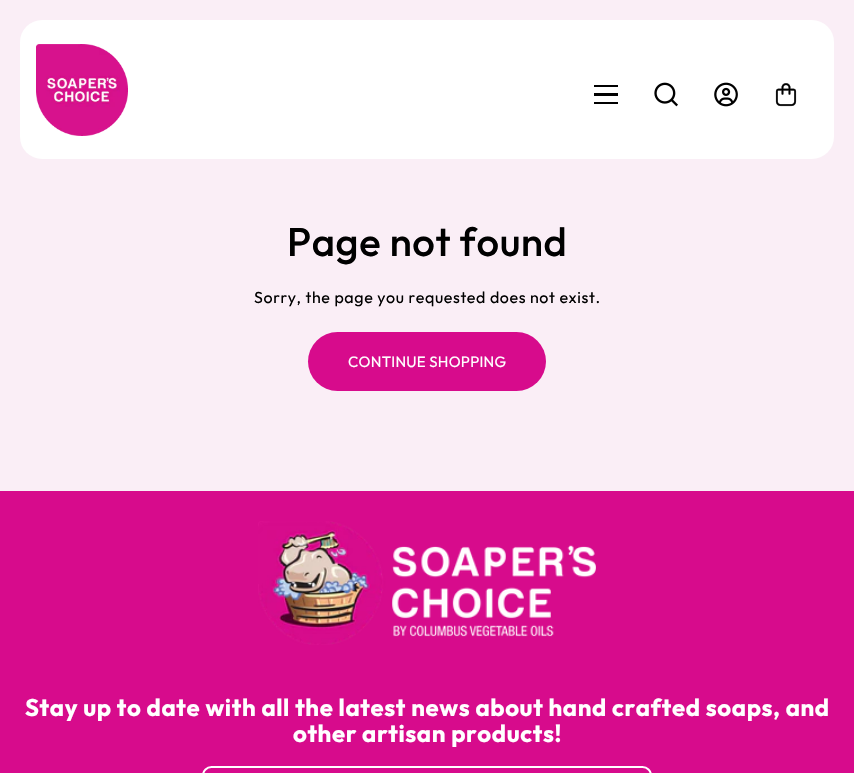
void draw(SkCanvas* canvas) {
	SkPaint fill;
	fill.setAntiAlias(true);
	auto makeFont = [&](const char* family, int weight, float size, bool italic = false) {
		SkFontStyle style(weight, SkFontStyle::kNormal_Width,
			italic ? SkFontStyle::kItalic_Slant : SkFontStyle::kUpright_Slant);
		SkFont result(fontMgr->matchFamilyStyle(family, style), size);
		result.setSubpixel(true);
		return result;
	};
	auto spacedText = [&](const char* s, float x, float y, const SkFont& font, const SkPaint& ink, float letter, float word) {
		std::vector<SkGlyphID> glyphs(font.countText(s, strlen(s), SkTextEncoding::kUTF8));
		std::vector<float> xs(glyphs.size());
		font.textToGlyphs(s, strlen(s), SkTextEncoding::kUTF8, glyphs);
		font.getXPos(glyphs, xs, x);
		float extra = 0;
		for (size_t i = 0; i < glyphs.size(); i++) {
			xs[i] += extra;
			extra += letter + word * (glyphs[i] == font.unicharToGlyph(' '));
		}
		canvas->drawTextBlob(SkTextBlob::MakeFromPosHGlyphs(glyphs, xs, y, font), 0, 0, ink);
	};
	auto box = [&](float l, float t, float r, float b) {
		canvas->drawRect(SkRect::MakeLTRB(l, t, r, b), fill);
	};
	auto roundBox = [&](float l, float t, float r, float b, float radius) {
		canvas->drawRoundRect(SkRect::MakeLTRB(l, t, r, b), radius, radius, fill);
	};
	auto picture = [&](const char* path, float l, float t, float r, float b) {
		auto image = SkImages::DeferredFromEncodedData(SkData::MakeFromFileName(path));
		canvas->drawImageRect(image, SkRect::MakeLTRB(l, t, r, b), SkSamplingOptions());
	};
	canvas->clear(0xFFFAEEF6);
	fill.setColor(0xFFFFFFFF);
	roundBox(20, 20, 834, 159, 22);
	picture("image0.png", 36, 44, 128, 136);
	fill.setColor(0xFF000000);
	box(594, 85, 618, 87);
	box(594, 93, 618, 96);
	box(594, 102, 618, 104);
	picture("image1.png", 654, 82, 678, 107);
	picture("image2.png", 714, 82, 738, 107);
	picture("image3.png", 775, 83, 797, 107);
	fill.setColor(0xFFD70B8C);
	roundBox(308, 332, 546, 391, 29.5f);
	box(0, 491, 854, 773);
	picture("image4.png", 258, 521, 596, 645);
	fill.setStyle(SkPaint::kStroke_Style);
	fill.setStrokeWidth(2);
	fill.setColor(0xFFFFFFFF);
	canvas->drawRoundRect(SkRect::MakeLTRB(203, 767, 651, 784), 9, 9, fill);
	auto font1 = makeFont("Outfit", 500, 40);
	fill.setStyle(SkPaint::kFill_Style);
	fill.setColor(0xFF000000);
	spacedText("Page not found", 287, 256, font1, fill, 0.6f, 0);
	auto font2 = makeFont("Outfit", 400, 16);
	spacedText("Sorry, the page you requested does not exist.", 254, 303, font2, fill, 0.6f, 0);
	auto font3 = makeFont("Outfit", 400, 15);
	fill.setColor(0xFFFFFFFF);
	spacedText("CONTINUE SHOPPING", 348, 367, font3, fill, 0.25f, 0);
	auto font4 = makeFont("Outfit", 700, 24);
	spacedText("Stay up to date with all the latest news about hand crafted soaps, and", 25, 716, font4, fill, 0.6f, 0);
	spacedText("other artisan products!", 293, 742, font4, fill, 0.6f, 0);
}
